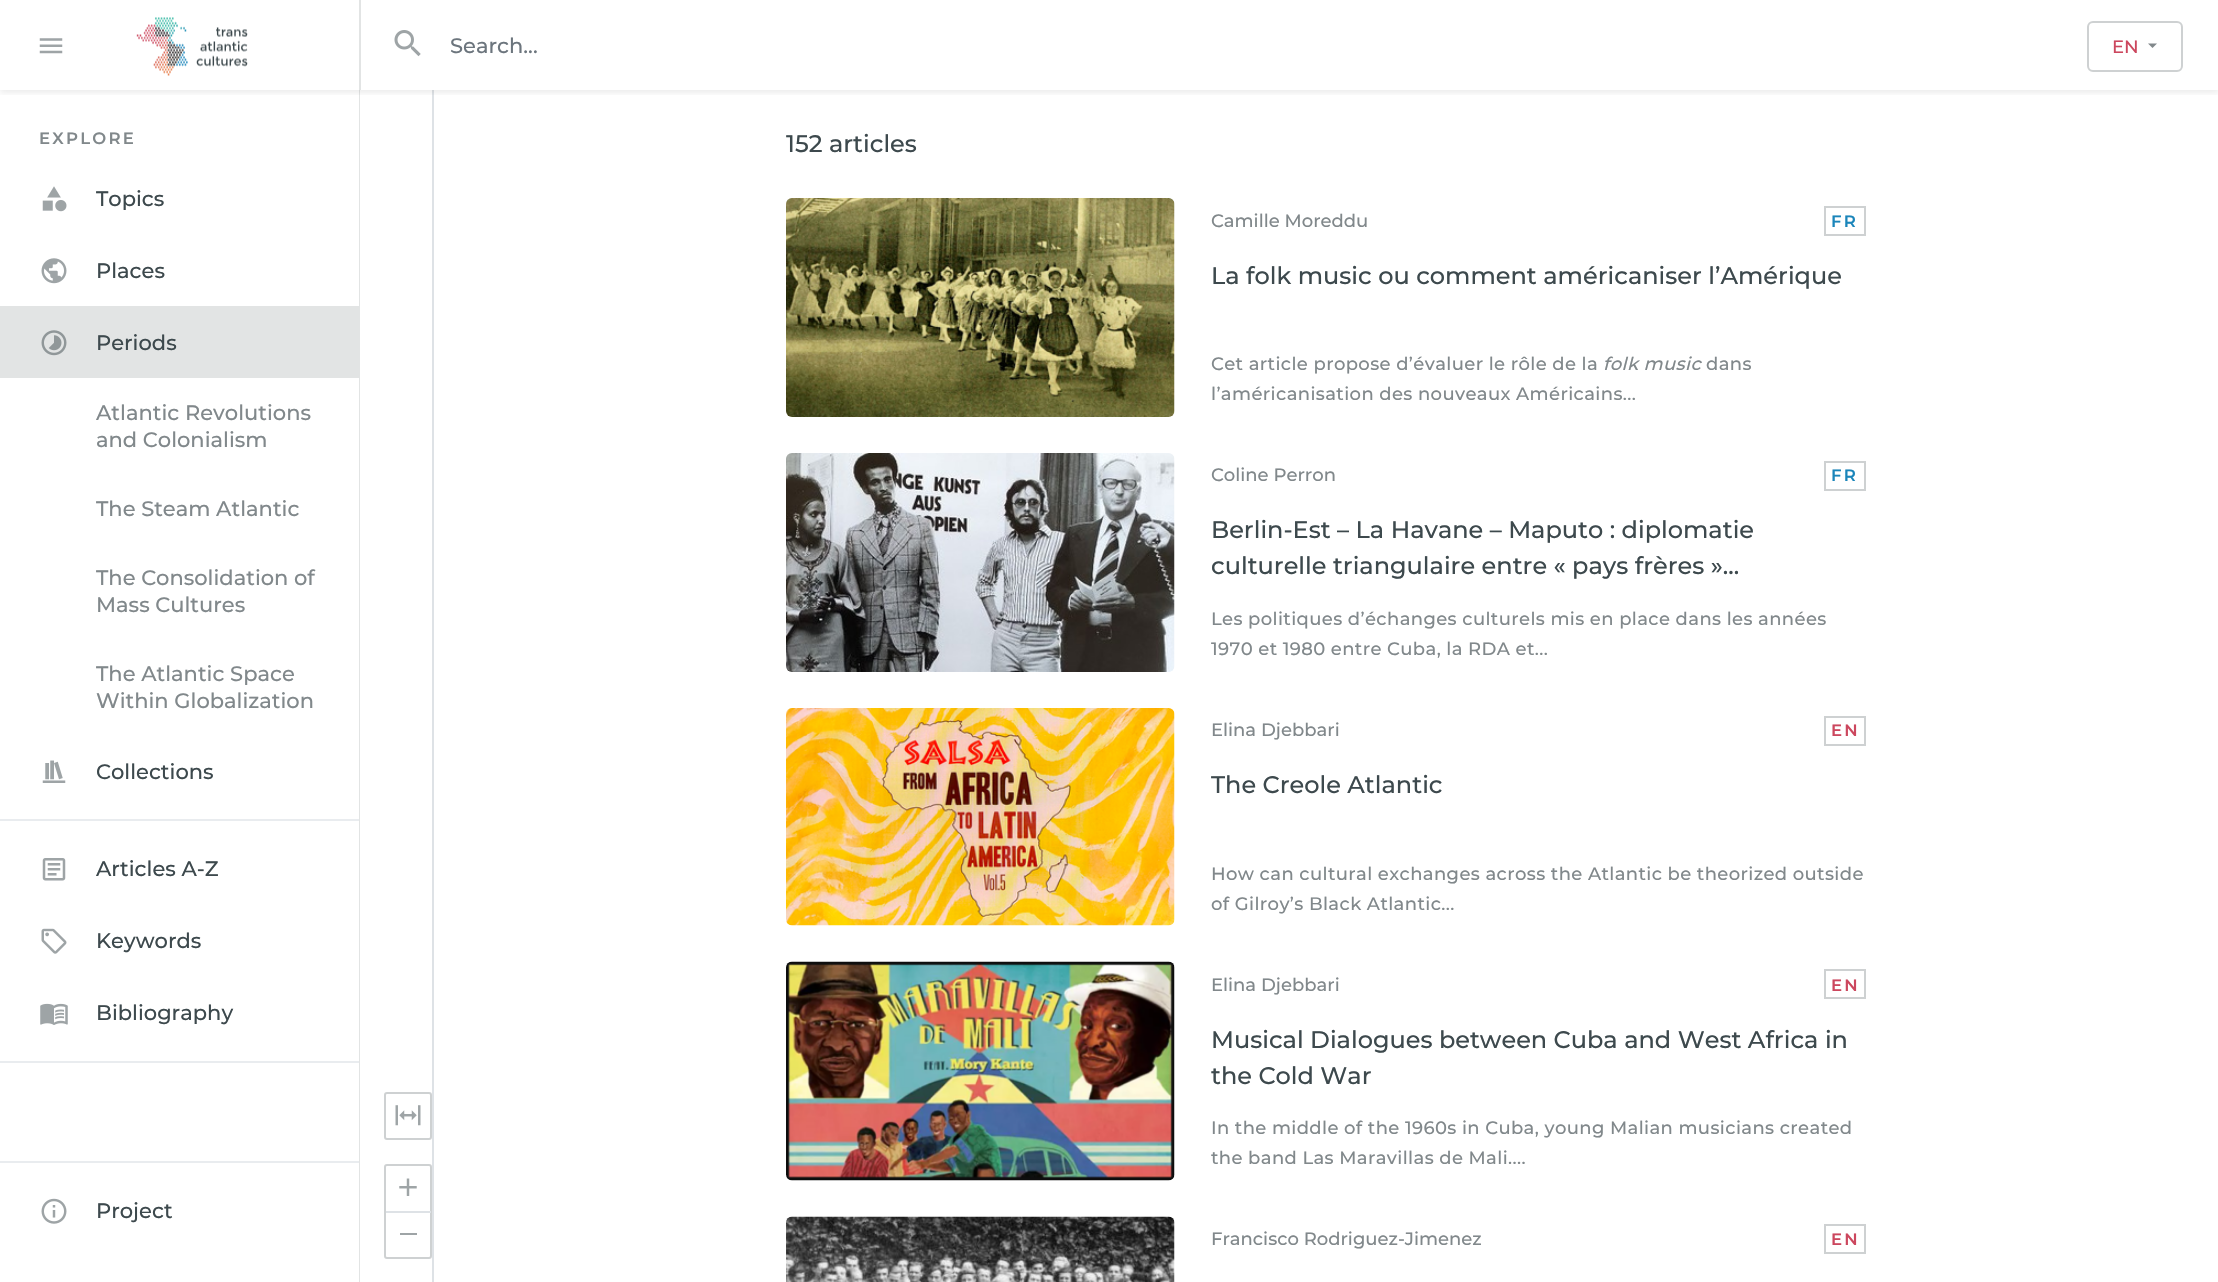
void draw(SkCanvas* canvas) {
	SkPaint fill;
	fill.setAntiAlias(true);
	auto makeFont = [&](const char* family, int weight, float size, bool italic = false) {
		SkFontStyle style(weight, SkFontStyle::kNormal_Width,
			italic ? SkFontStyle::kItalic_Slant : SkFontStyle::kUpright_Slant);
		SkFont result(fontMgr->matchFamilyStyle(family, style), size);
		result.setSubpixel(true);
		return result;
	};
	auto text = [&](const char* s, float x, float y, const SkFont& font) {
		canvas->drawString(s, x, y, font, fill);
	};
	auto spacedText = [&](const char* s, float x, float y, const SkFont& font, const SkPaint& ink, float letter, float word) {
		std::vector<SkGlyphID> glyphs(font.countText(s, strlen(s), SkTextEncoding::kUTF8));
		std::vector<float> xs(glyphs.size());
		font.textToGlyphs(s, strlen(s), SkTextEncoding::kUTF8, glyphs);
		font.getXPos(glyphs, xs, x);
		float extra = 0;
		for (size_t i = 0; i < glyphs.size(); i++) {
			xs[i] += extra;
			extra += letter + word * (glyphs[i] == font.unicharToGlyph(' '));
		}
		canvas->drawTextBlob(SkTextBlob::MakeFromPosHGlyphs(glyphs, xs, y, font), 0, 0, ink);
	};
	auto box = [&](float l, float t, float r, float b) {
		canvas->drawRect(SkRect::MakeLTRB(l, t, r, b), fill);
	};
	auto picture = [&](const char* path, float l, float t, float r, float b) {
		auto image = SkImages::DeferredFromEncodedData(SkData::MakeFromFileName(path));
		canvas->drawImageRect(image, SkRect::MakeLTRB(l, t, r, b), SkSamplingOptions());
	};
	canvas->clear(0xFFFFFFFF);
	fill.setColor(0xFFE2E4E4);
	box(359, 90, 360, 1282);
	fill.setColor(0xFFDEE2E6);
	box(432, 90, 434, 1282);
	canvas->save();
	canvas->clipRect(SkRect::MakeLTRB(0, 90, 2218, 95));
	fill.setColor(0x12000000);
	fill.setMaskFilter(SkMaskFilter::MakeBlur(kNormal_SkBlurStyle, 3));
	canvas->drawRect(SkRect::MakeLTRB(0, 3, 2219, 93), fill);
	fill.setMaskFilter(nullptr);
	canvas->restore();
	fill.setColor(0xFFE2E4E4);
	box(359, 0, 361, 90);
	picture("image0.png", 39, 38, 63, 54);
	picture("image1.png", 136, 17, 248, 76);
	picture("image2.png", 394, 30, 421, 57);
	fill.setStyle(SkPaint::kStroke_Style);
	fill.setStrokeWidth(2);
	fill.setColor(0xFFCED1D2);
	canvas->drawRoundRect(SkRect::MakeLTRB(2088, 22, 2182, 71), 5, 5, fill);
	fill.setStyle(SkPaint::kFill_Style);
	fill.setColor(0xFF81888B);
	canvas->drawPath(SkPathBuilder().moveTo(2148, 43.5f).lineTo(2157, 43.5f).lineTo(2152.5f, 48).close().detach(), fill);
	picture("image3.png", 42, 186, 67, 212);
	picture("image4.png", 41, 258, 67, 284);
	fill.setColor(0xFFE2E4E4);
	box(0, 306, 359, 378);
	picture("image5.png", 41, 330, 67, 356);
	picture("image6.png", 42, 760, 66, 783);
	fill.setColor(0xFFE9ECEF);
	box(0, 819, 359, 821);
	picture("image7.png", 42, 858, 66, 881);
	picture("image8.png", 41, 928, 67, 954);
	picture("image9.png", 40, 1003, 68, 1025);
	box(0, 1061, 359, 1063);
	box(0, 1161, 359, 1163);
	picture("image10.png", 41, 1198, 67, 1224);
	fill.setStyle(SkPaint::kStroke_Style);
	fill.setColor(0xFFCED1D2);
	canvas->drawRoundRect(SkRect::MakeLTRB(385, 1093, 431, 1139), 2, 2, fill);
	picture("image11.png", 395, 1105, 421, 1126);
	canvas->drawRoundRect(SkRect::MakeLTRB(385, 1165, 431, 1258), 2, 2, fill);
	fill.setStyle(SkPaint::kFill_Style);
	fill.setColor(0xFFDEE2E6);
	box(386, 1211, 431, 1213);
	picture("image12.png", 399, 1178, 417, 1196);
	fill.setColor(0xFF9EA4A6);
	box(400, 1233, 417, 1235);
	picture("image13.png", 786, 198, 1175, 417);
	fill.setStyle(SkPaint::kStroke_Style);
	fill.setColor(0xFFCED1D2);
	canvas->drawRect(SkRect::MakeLTRB(1825, 207, 1865, 235), fill);
	picture("image14.png", 786, 453, 1175, 672);
	canvas->drawRect(SkRect::MakeLTRB(1825, 462, 1865, 490), fill);
	picture("image15.png", 786, 708, 1175, 926);
	canvas->drawRect(SkRect::MakeLTRB(1825, 717, 1865, 745), fill);
	picture("image16.png", 786, 961, 1175, 1181);
	canvas->drawRect(SkRect::MakeLTRB(1825, 970, 1865, 998), fill);
	picture("image17.png", 786, 1216, 1175, 1282);
	canvas->drawRect(SkRect::MakeLTRB(1825, 1225, 1865, 1253), fill);
	auto font1 = makeFont("Montserrat", 500, 21);
	fill.setStyle(SkPaint::kFill_Style);
	fill.setColor(0xFF6C757D);
	text("Search...", 450, 53, font1);
	auto font2 = makeFont("Montserrat", 500, 18);
	fill.setColor(0xFFCC475E);
	text("EN", 2112, 53, font2);
	auto font3 = makeFont("Montserrat", 600, 16.5f);
	fill.setColor(0xFF81888B);
	spacedText("EXPLORE", 39, 144, font3, fill, 2.25f, 0);
	fill.setColor(0xFF3D494D);
	text("Topics", 96, 206, font1);
	text("Places", 96, 278, font1);
	text("Periods", 96, 350, font1);
	fill.setColor(0xFF81888B);
	text("Atlantic Revolutions", 96, 420, font1);
	text("and Colonialism", 96, 447, font1);
	text("The Steam Atlantic", 96, 516, font1);
	text("The Consolidation of", 96, 585, font1);
	text("Mass Cultures", 96, 612, font1);
	text("The Atlantic Space", 96, 681, font1);
	text("Within Globalization", 96, 708, font1);
	fill.setColor(0xFF3D494D);
	text("Collections", 96, 779, font1);
	text("Articles A-Z", 96, 876, font1);
	text("Keywords", 96, 948, font1);
	text("Bibliography", 96, 1020, font1);
	text("Project", 96, 1218, font1);
	auto font4 = makeFont("Montserrat", 500, 24);
	text("152 articles", 786, 152, font4);
	fill.setColor(0xFF81888B);
	text("Camille Moreddu", 1211, 227, font2);
	fill.setColor(0xFF1A85BA);
	spacedText("FR", 1831, 227, font3, fill, 2.25f, 0);
	fill.setColor(0xFF3D494D);
	text("La folk music ou comment américaniser l’Amérique", 1211, 284, font4);
	fill.setColor(0xFF81888B);
	spacedText("Cet article propose d’évaluer le rôle de la", 1211, 370, font2, fill, 0.38f, 0);
	auto font5 = makeFont("Montserrat", 500, 18, true);
	spacedText("folk music", 1603, 370, font5, fill, 0.38f, 0);
	spacedText("dans", 1706, 370, font2, fill, 0.38f, 0);
	spacedText("l’américanisation des nouveaux Américains...", 1211, 400, font2, fill, 0.38f, 0);
	text("Coline Perron", 1211, 481, font2);
	fill.setColor(0xFF1A85BA);
	spacedText("FR", 1831, 481, font3, fill, 2.25f, 0);
	fill.setColor(0xFF3D494D);
	text("Berlin-Est – La Havane – Maputo : diplomatie", 1211, 538, font4);
	text("culturelle triangulaire entre « pays frères »...", 1211, 574, font4);
	fill.setColor(0xFF81888B);
	spacedText("Les politiques d’échanges culturels mis en place dans les années", 1211, 625, font2, fill, 0.38f, 0);
	spacedText("1970 et 1980 entre Cuba, la RDA et...", 1211, 655, font2, fill, 0.38f, 0);
	text("Elina Djebbari", 1211, 736, font2);
	fill.setColor(0xFFCC475E);
	spacedText("EN", 1831, 736, font3, fill, 2.25f, 0);
	fill.setColor(0xFF3D494D);
	text("The Creole Atlantic", 1211, 793, font4);
	fill.setColor(0xFF81888B);
	spacedText("How can cultural exchanges across the Atlantic be theorized outside", 1211, 880, font2, fill, 0.38f, 0);
	spacedText("of Gilroy’s Black Atlantic...", 1211, 910, font2, fill, 0.38f, 0);
	text("Elina Djebbari", 1211, 991, font2);
	fill.setColor(0xFFCC475E);
	spacedText("EN", 1831, 991, font3, fill, 2.25f, 0);
	fill.setColor(0xFF3D494D);
	text("Musical Dialogues between Cuba and West Africa in", 1211, 1048, font4);
	text("the Cold War", 1211, 1084, font4);
	fill.setColor(0xFF81888B);
	spacedText("In the middle of the 1960s in Cuba, young Malian musicians created", 1211, 1134, font2, fill, 0.38f, 0);
	spacedText("the band Las Maravillas de Mali....", 1211, 1164, font2, fill, 0.38f, 0);
	text("Francisco Rodriguez-Jimenez", 1211, 1245, font2);
	fill.setColor(0xFFCC475E);
	spacedText("EN", 1831, 1245, font3, fill, 2.25f, 0);
}
